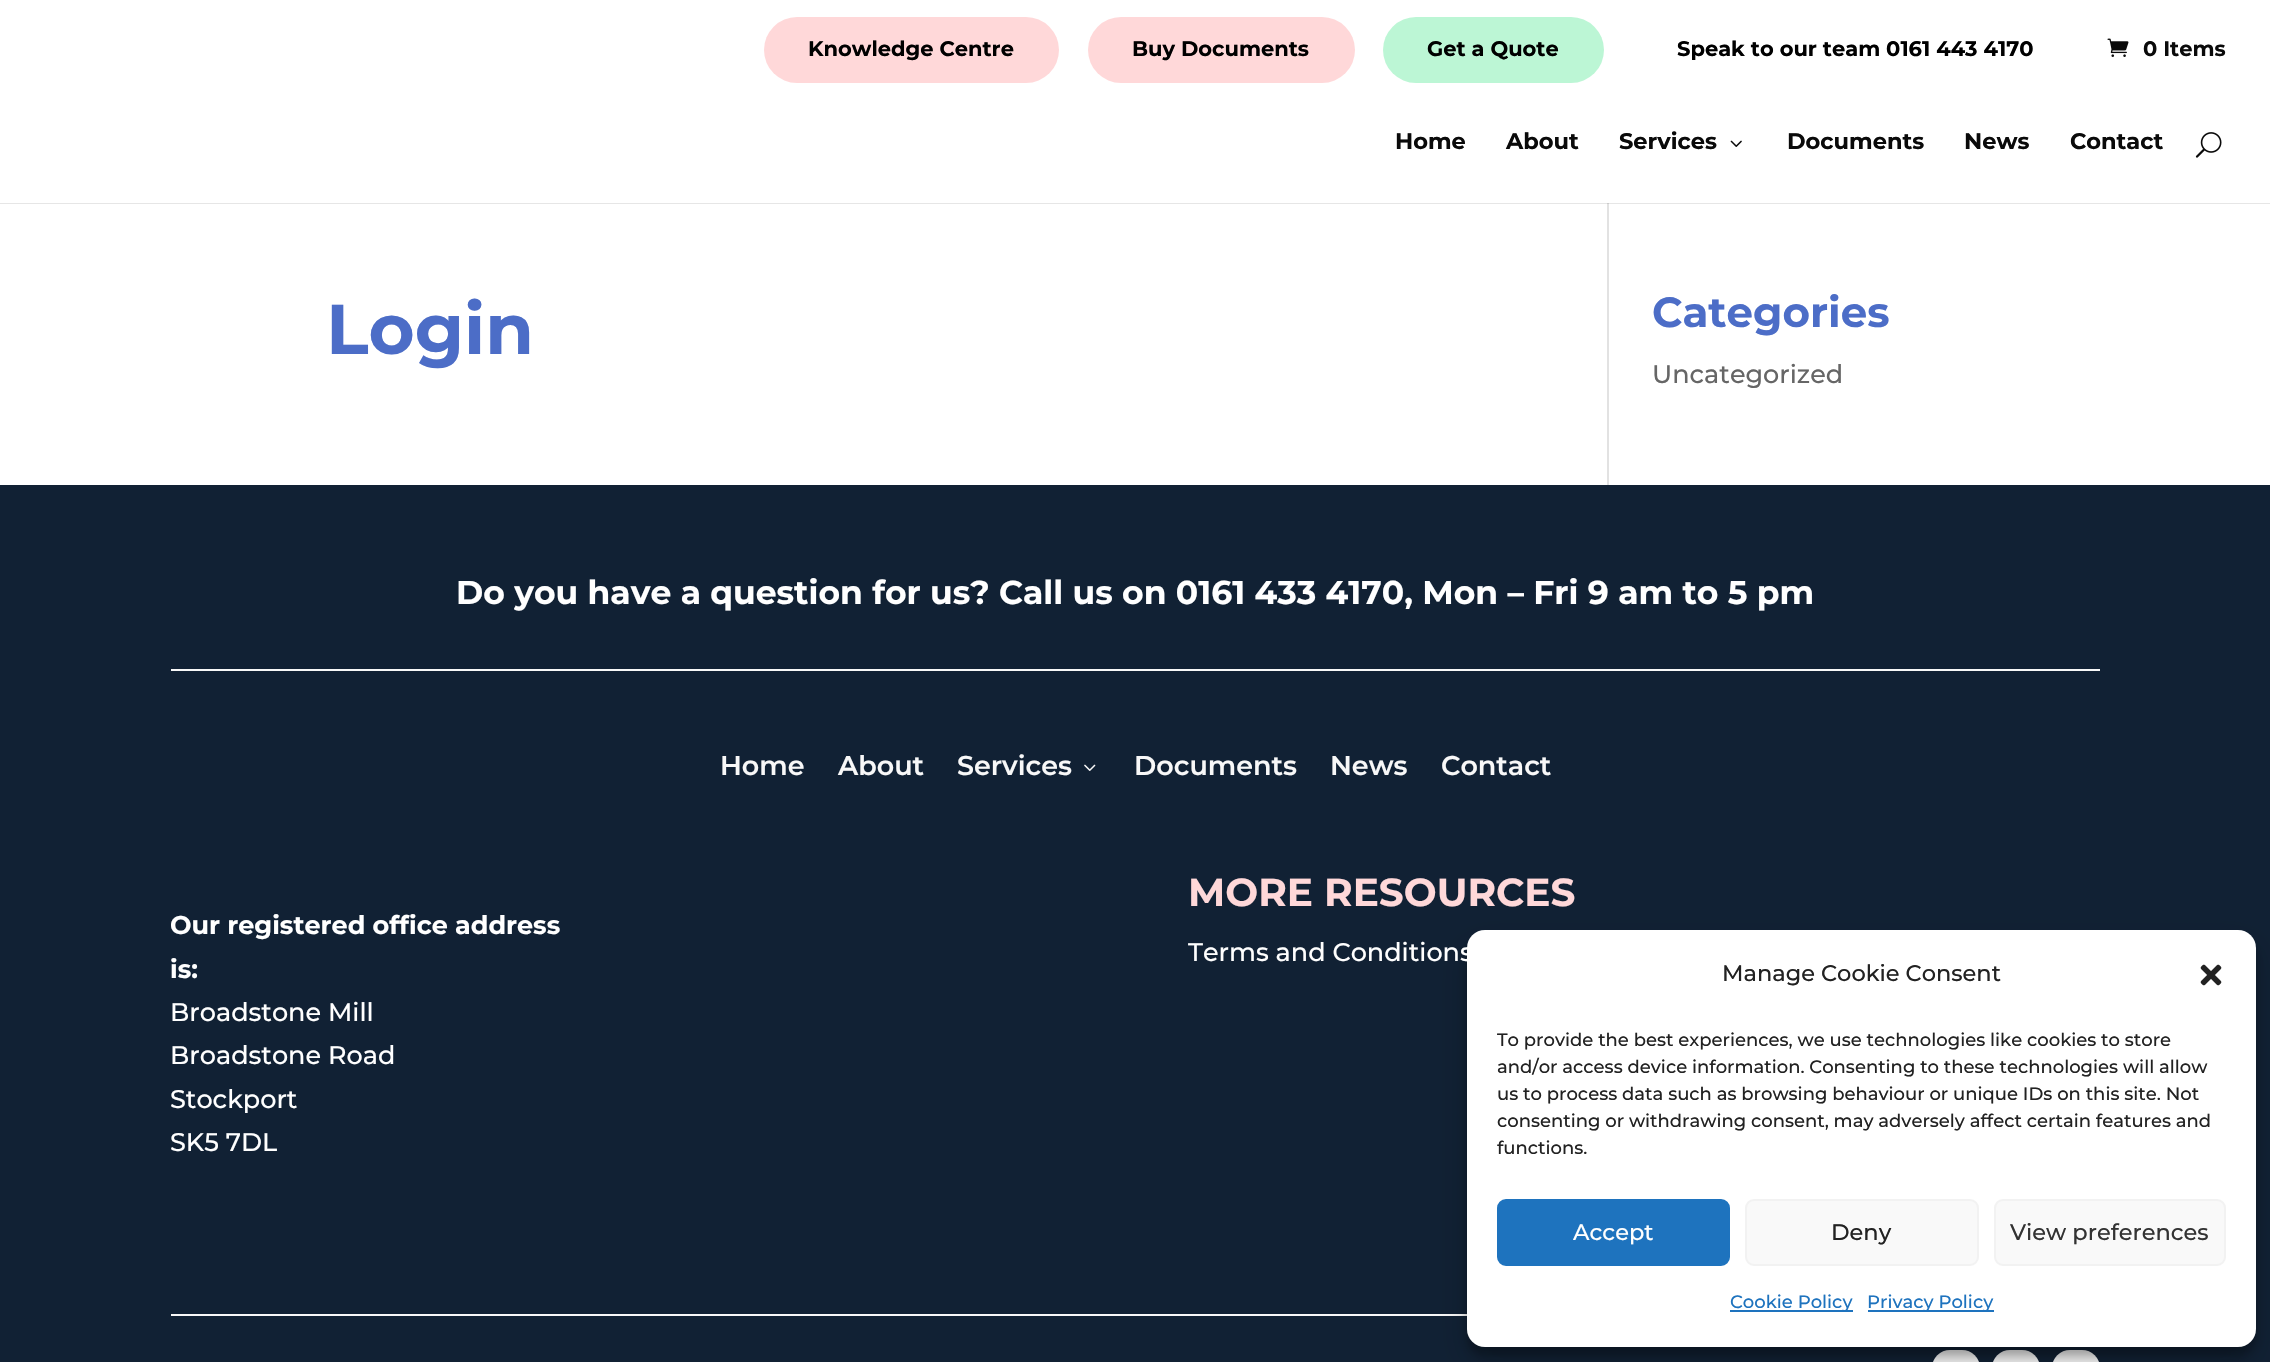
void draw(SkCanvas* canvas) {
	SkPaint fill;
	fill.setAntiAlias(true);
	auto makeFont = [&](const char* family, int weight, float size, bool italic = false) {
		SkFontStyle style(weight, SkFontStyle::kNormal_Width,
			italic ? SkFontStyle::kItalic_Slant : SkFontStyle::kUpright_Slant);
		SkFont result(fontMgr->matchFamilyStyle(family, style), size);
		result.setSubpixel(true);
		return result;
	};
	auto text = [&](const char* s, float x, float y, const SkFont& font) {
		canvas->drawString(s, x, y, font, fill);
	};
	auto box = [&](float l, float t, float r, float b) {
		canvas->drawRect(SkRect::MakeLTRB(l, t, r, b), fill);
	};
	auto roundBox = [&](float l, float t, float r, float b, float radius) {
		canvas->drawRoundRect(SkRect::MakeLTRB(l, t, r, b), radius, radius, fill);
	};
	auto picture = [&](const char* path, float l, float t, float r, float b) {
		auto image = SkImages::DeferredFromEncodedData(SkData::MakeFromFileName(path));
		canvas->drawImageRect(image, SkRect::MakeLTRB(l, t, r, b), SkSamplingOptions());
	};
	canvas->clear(0xFFFFFFFF);
	fill.setColor(0xFFE6E6E6);
	box(0, 203, 2270, 204);
	fill.setColor(0xFFFFD8D9);
	roundBox(764, 17, 1059, 83, 33);
	roundBox(1088, 17, 1355, 83, 33);
	fill.setColor(0xFFBCF6D5);
	roundBox(1383, 17, 1604, 83, 33);
	picture("image0.png", 2107, 38, 2129, 57);
	fill.setColor(0xFFE2E2E2);
	box(1607, 201, 1609, 485);
	fill.setColor(0xFFFFFFFF);
	box(1607, 201, 1609, 203);
	picture("image1.png", 1730, 140, 1742, 147);
	picture("image2.png", 2195, 132, 2222, 158);
	fill.setColor(0xFFCBCBCB);
	box(1607, 203, 1609, 204);
	fill.setColor(0xFF112134);
	box(0, 485, 2270, 1362);
	fill.setColor(0xFFF8F8F8);
	box(171, 669, 2100, 671);
	picture("image3.png", 1084, 764, 1096, 771);
	box(171, 1314, 1467, 1316);
	roundBox(1932, 1350, 1980, 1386, 24);
	roundBox(1992, 1350, 2040, 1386, 24);
	roundBox(2052, 1350, 2100, 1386, 24);
	fill.setColor(0x3B000000);
	fill.setMaskFilter(SkMaskFilter::MakeBlur(kNormal_SkBlurStyle, 4.5f));
	canvas->drawRoundRect(SkRect::MakeLTRB(1467, 939, 2256, 1356), 18, 18, fill);
	fill.setMaskFilter(nullptr);
	fill.setColor(0x30000000);
	fill.setMaskFilter(SkMaskFilter::MakeBlur(kNormal_SkBlurStyle, 15));
	canvas->drawRoundRect(SkRect::MakeLTRB(1467, 945, 2256, 1362), 18, 18, fill);
	fill.setMaskFilter(nullptr);
	fill.setColor(0xFFFFFFFF);
	roundBox(1467, 930, 2256, 1347, 18);
	picture("image4.png", 2200, 964, 2222, 986);
	fill.setColor(0xFF1E73BE);
	canvas->drawRoundRect(SkRect::MakeLTRB(1498, 1200, 1729, 1265), 8, 8, fill);
	fill.setStyle(SkPaint::kStroke_Style);
	fill.setStrokeWidth(2);
	canvas->drawRoundRect(SkRect::MakeLTRB(1498, 1200, 1729, 1265), 8, 8, fill);
	fill.setStyle(SkPaint::kFill_Style);
	fill.setColor(0xFFF9F9F9);
	canvas->drawRoundRect(SkRect::MakeLTRB(1746, 1200, 1978, 1265), 8, 8, fill);
	fill.setStyle(SkPaint::kStroke_Style);
	fill.setColor(0xFFF2F2F2);
	canvas->drawRoundRect(SkRect::MakeLTRB(1746, 1200, 1978, 1265), 8, 8, fill);
	fill.setStyle(SkPaint::kFill_Style);
	fill.setColor(0xFFF9F9F9);
	canvas->drawRoundRect(SkRect::MakeLTRB(1995, 1200, 2225, 1265), 8, 8, fill);
	fill.setStyle(SkPaint::kStroke_Style);
	fill.setColor(0xFFF2F2F2);
	canvas->drawRoundRect(SkRect::MakeLTRB(1995, 1200, 2225, 1265), 8, 8, fill);
	fill.setStyle(SkPaint::kFill_Style);
	fill.setColor(0xFF1E73BE);
	box(1730, 1310, 1853, 1312);
	box(1868, 1310, 1994, 1312);
	auto font1 = makeFont("Montserrat", 100, 21);
	fill.setColor(0xFF000000);
	text("Knowledge Centre", 808, 56, font1);
	text("Buy Documents", 1132, 56, font1);
	text("Get a Quote", 1427, 56, font1);
	text("Speak to our team 0161 443 4170", 1677, 56, font1);
	fill.setColor(0xFF0A0A0A);
	text("0 Items", 2143, 56, font1);
	auto font2 = makeFont("Montserrat", 100, 22.5f);
	text("Home", 1395, 149, font2);
	text("About", 1506, 149, font2);
	text("Services", 1619, 149, font2);
	text("Documents", 1787, 149, font2);
	text("News", 1964, 149, font2);
	text("Contact", 2070, 149, font2);
	auto font3 = makeFont("Montserrat", 100, 70.5f);
	fill.setColor(0xFF4C6DC7);
	text("Login", 326, 354, font3);
	auto font4 = makeFont("Montserrat", 100, 42);
	text("Categories", 1652, 327, font4);
	auto font5 = makeFont("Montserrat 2", 100, 25.5f);
	fill.setColor(0xFF666666);
	text("Uncategorized", 1652, 383, font5);
	auto font6 = makeFont("Montserrat", 100, 33);
	fill.setColor(0xFFFFFFFF);
	text("Do you have a question for us? Call us on 0161 433 4170, Mon – Fri 9 am to 5 pm", 456, 604, font6);
	auto font7 = makeFont("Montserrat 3", 100, 27);
	fill.setColor(0xFFF8F8F8);
	text("Home", 720, 775, font7);
	text("About", 838, 775, font7);
	text("Services", 957, 775, font7);
	text("Documents", 1134, 775, font7);
	text("News", 1330, 775, font7);
	text("Contact", 1441, 775, font7);
	auto font8 = makeFont("Montserrat", 100, 25.5f);
	fill.setColor(0xFFFFFFFF);
	text("Our registered office address", 170, 934, font8);
	text("is:", 170, 978, font8);
	text("Broadstone Mill", 170, 1021, font5);
	text("Broadstone Road", 170, 1064, font5);
	text("Stockport", 170, 1108, font5);
	text("SK5 7DL", 170, 1151, font5);
	auto font9 = makeFont("Montserrat", 100, 39);
	fill.setColor(0xFFFFD8D9);
	text("MORE RESOURCES", 1188, 906, font9);
	fill.setColor(0xFFFFFFFF);
	text("Terms and Conditions", 1188, 961, font5);
	auto font10 = makeFont("Montserrat 2", 100, 22.5f);
	fill.setColor(0xFF222222);
	text("Manage Cookie Consent", 1722, 981, font10);
	auto font11 = makeFont("Montserrat 2", 100, 18);
	text("To provide the best experiences, we use technologies like cookies to store", 1497, 1046, font11);
	text("and/or access device information. Consenting to these technologies will allow", 1497, 1073, font11);
	text("us to process data such as browsing behaviour or unique IDs on this site. Not", 1497, 1100, font11);
	text("consenting or withdrawing consent, may adversely affect certain features and", 1497, 1127, font11);
	text("functions.", 1497, 1154, font11);
	fill.setColor(0xFFFFFFFF);
	text("Accept", 1573, 1240, font10);
	fill.setColor(0xFF222222);
	text("Deny", 1831, 1240, font10);
	fill.setColor(0xFF333333);
	text("View preferences", 2010, 1240, font10);
	fill.setColor(0xFF1E73BE);
	text("Cookie Policy", 1730, 1308, font11);
	text("Privacy Policy", 1867, 1308, font11);
}
